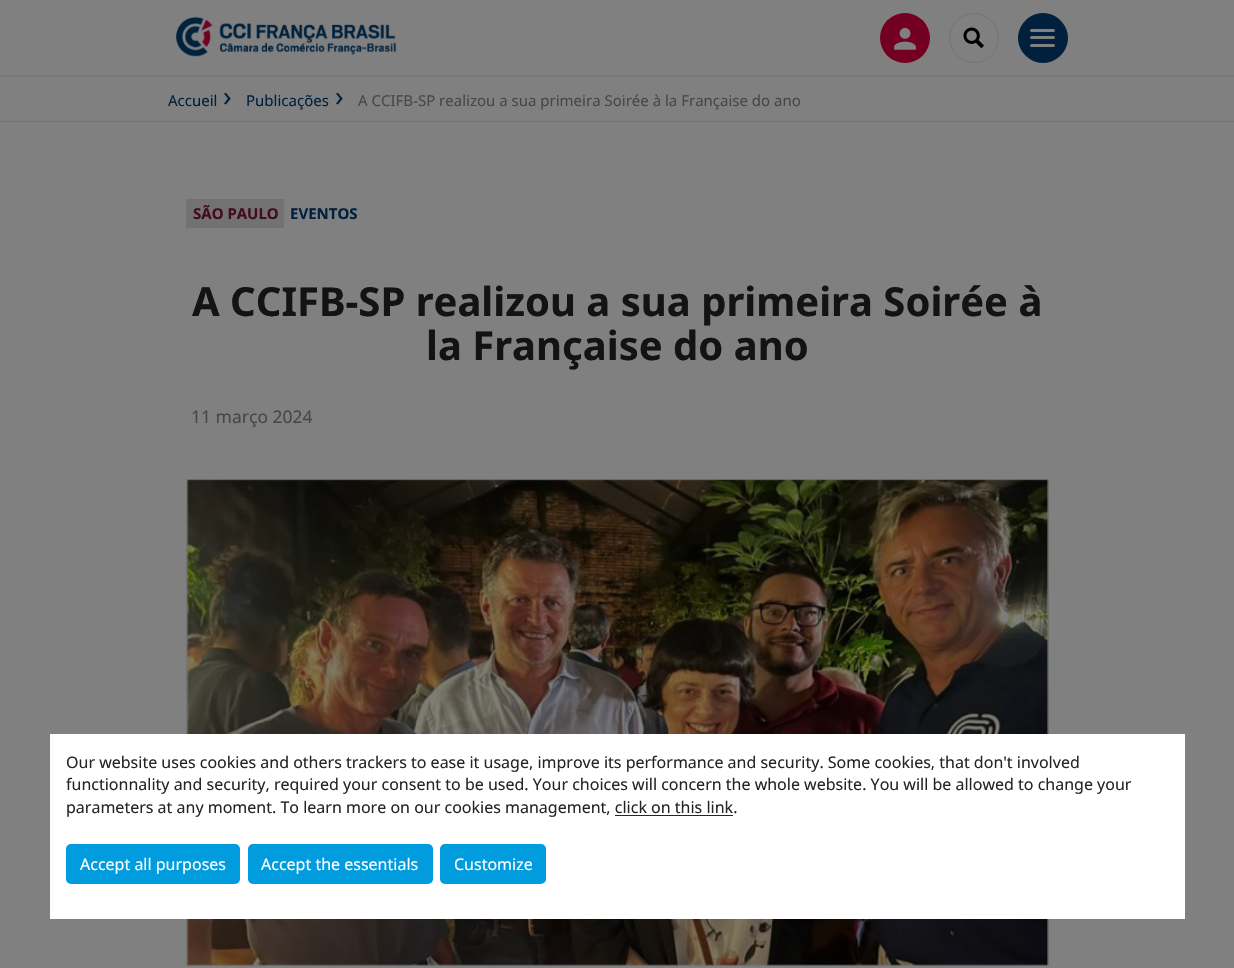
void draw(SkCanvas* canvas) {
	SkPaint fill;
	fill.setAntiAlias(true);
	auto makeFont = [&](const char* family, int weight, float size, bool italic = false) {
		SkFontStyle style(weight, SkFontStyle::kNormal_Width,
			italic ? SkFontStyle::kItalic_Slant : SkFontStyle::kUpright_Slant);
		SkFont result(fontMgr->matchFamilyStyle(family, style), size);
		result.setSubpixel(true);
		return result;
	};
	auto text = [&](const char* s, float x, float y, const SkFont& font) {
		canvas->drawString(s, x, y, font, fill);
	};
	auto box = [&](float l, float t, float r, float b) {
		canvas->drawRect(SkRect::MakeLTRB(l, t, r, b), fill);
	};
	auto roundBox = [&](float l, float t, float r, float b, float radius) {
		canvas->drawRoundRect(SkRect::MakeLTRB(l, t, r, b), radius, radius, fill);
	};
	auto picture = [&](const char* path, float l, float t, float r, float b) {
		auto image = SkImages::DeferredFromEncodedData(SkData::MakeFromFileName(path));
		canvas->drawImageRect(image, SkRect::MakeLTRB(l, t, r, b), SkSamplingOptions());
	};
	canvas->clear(0xFF808080);
	fill.setColor(0xFF797979);
	box(0, 75, 1234, 77);
	picture("image0.png", 175, 16, 397, 57);
	fill.setColor(0xFF730023);
	canvas->drawCircle(905, 38, 25, fill);
	picture("image1.png", 894, 27, 916, 50);
	fill.setStyle(SkPaint::kStroke_Style);
	fill.setStrokeWidth(1);
	fill.setColor(0xFF727272);
	canvas->drawCircle(974, 38, 24.5f, fill);
	picture("image2.png", 963, 27, 984, 49);
	fill.setStyle(SkPaint::kFill_Style);
	fill.setColor(0xFF00203D);
	canvas->drawCircle(1043, 38, 24.5f, fill);
	fill.setStyle(SkPaint::kStroke_Style);
	canvas->drawCircle(1043, 38, 24.5f, fill);
	fill.setStyle(SkPaint::kFill_Style);
	fill.setColor(0xFF808080);
	roundBox(1030, 29, 1055, 32, 1.5f);
	roundBox(1030, 36, 1055, 39, 1.5f);
	roundBox(1030, 44, 1055, 47, 1.5f);
	fill.setColor(0xFF727272);
	box(0, 121, 1234, 122);
	box(186, 199, 284, 228);
	fill.setStyle(SkPaint::kStroke_Style);
	canvas->drawRect(SkRect::MakeLTRB(186.5f, 479.5f, 1048.5f, 965.5f), fill);
	picture("image3.png", 187, 479, 1049, 966);
	fill.setStyle(SkPaint::kFill_Style);
	fill.setColor(0xFFFFFFFF);
	box(50, 734, 1185, 919);
	fill.setColor(0xFF252525);
	box(615, 815, 733, 816);
	fill.setColor(0xFF009CDE);
	roundBox(66, 844, 240, 884, 5);
	roundBox(248, 844, 433, 884, 5);
	roundBox(440, 844, 546, 884, 5);
	auto font1 = makeFont("Noto Sans", 400, 15);
	fill.setColor(0xFF00203D);
	text("Accueil", 168, 106, font1);
	auto font2 = makeFont("Noto Sans", 400, 28);
	text("›", 223, 106, font2);
	text("Publicações", 246, 106, font1);
	text("›", 335, 106, font2);
	fill.setColor(0xFF474747);
	text("A CCIFB-SP realizou a sua primeira Soirée à la Française do ano", 358, 106, font1);
	auto font3 = makeFont("Noto Sans", 700, 15);
	fill.setColor(0xFF440A1E);
	text("SÃO PAULO", 193, 219, font3);
	fill.setColor(0xFF00203D);
	text("EVENTOS", 290, 219, font3);
	auto font4 = makeFont("Noto Sans", 700, 40);
	fill.setColor(0xFF131313);
	text("A CCIFB-SP realizou a sua primeira Soirée à", 192, 316, font4);
	text("la Française do ano", 426, 360, font4);
	auto font5 = makeFont("Noto Sans", 400, 17.5f);
	fill.setColor(0xFF474747);
	text("11 março 2024", 191, 423, font5);
	auto font6 = makeFont("Noto Sans", 400, 16);
	fill.setColor(0xFF252525);
	text("Our website uses cookies and others trackers to ease it usage, improve its performance and security. Some cookies, that don't involved", 66, 768, font6);
	text("functionnality and security, required your consent to be used. Your choices will concern the whole website. You will be allowed to change your", 66, 790, font6);
	text("parameters at any moment. To learn more on our cookies management, click on this link.", 66, 813, font6);
	fill.setColor(0xFFFFFFFF);
	text("Accept all purposes", 80, 870, font6);
	text("Accept the essentials", 261, 870, font6);
	text("Customize", 454, 870, font6);
}
